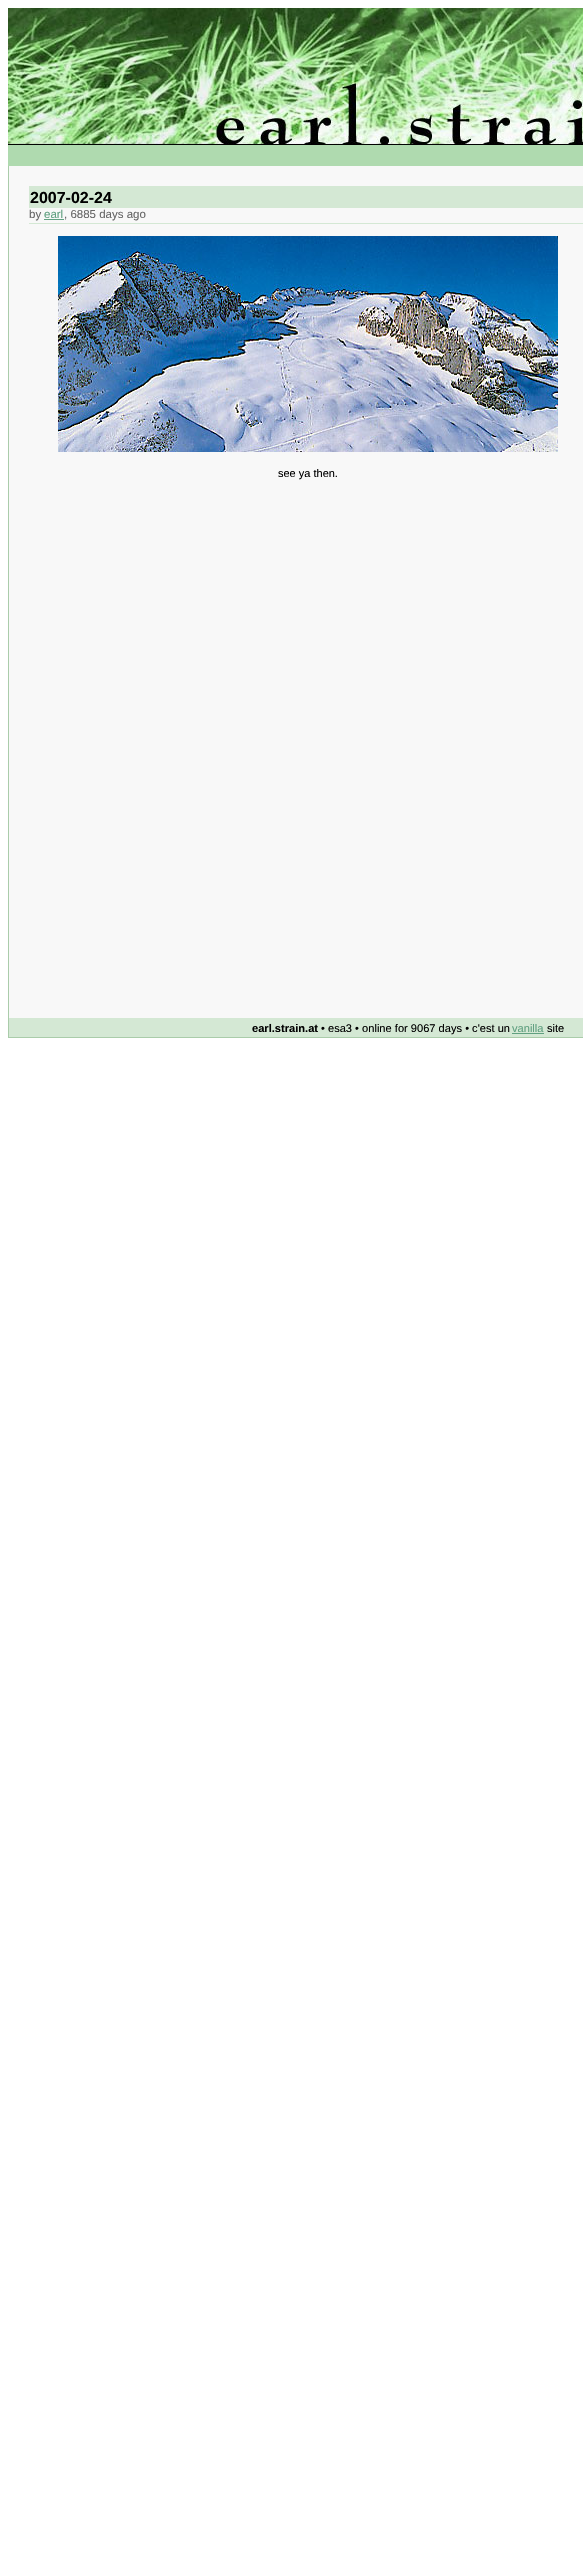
void draw(SkCanvas* canvas) {
	SkPaint fill;
	fill.setAntiAlias(true);
	auto makeFont = [&](const char* family, int weight, float size, bool italic = false) {
		SkFontStyle style(weight, SkFontStyle::kNormal_Width,
			italic ? SkFontStyle::kItalic_Slant : SkFontStyle::kUpright_Slant);
		SkFont result(fontMgr->matchFamilyStyle(family, style), size);
		result.setSubpixel(true);
		return result;
	};
	auto text = [&](const char* s, float x, float y, const SkFont& font) {
		canvas->drawString(s, x, y, font, fill);
	};
	auto box = [&](float l, float t, float r, float b) {
		canvas->drawRect(SkRect::MakeLTRB(l, t, r, b), fill);
	};
	auto picture = [&](const char* path, float l, float t, float r, float b) {
		auto image = SkImages::DeferredFromEncodedData(SkData::MakeFromFileName(path));
		canvas->drawImageRect(image, SkRect::MakeLTRB(l, t, r, b), SkSamplingOptions());
	};
	canvas->clear(0xFFFFFFFF);
	picture("image0.png", 8, 8, 583, 145);
	fill.setColor(0xFFAFDAAF);
	box(8, 145, 583, 166);
	fill.setColor(0xFFF8F8F8);
	box(9, 166, 583, 1018);
	fill.setColor(0xFFAACCAA);
	box(8, 166, 9, 1018);
	fill.setColor(0xFFD4E8D4);
	box(29, 186, 583, 208);
	box(29, 223, 583, 224);
	fill.setColor(0xFF60A080);
	box(44, 219, 64, 220);
	picture("image1.png", 58, 236, 558, 452);
	fill.setColor(0xFFD4E8D4);
	box(9, 1018, 583, 1037);
	fill.setColor(0xFFAACCAA);
	box(8, 1037, 583, 1038);
	box(8, 1018, 9, 1038);
	fill.setColor(0xFF60A080);
	box(512, 1033, 544, 1034);
	auto font1 = makeFont("Liberation Sans", 700, 16);
	fill.setColor(0xFF000000);
	text("2007-02-24", 30, 203, font1);
	auto font2 = makeFont("Liberation Sans", 400, 11.5f);
	fill.setColor(0xFF666666);
	text("by", 29, 218, font2);
	fill.setColor(0xFF60A080);
	text("earl", 44, 218, font2);
	fill.setColor(0xFF666666);
	text(", 6885 days ago", 64, 218, font2);
	auto font3 = makeFont("Liberation Sans", 400, 11);
	fill.setColor(0xFF000000);
	text("see ya then.", 278, 477, font3);
	auto font4 = makeFont("Liberation Sans", 700, 11.1f);
	text("earl.strain.at", 252, 1032, font4);
	auto font5 = makeFont("Liberation Sans", 400, 11.1f);
	text("• esa3 • online for 9067 days • c'est un", 321, 1032, font5);
	fill.setColor(0xFF60A080);
	text("vanilla", 512, 1032, font5);
	fill.setColor(0xFF000000);
	text("site", 547, 1032, font5);
}
